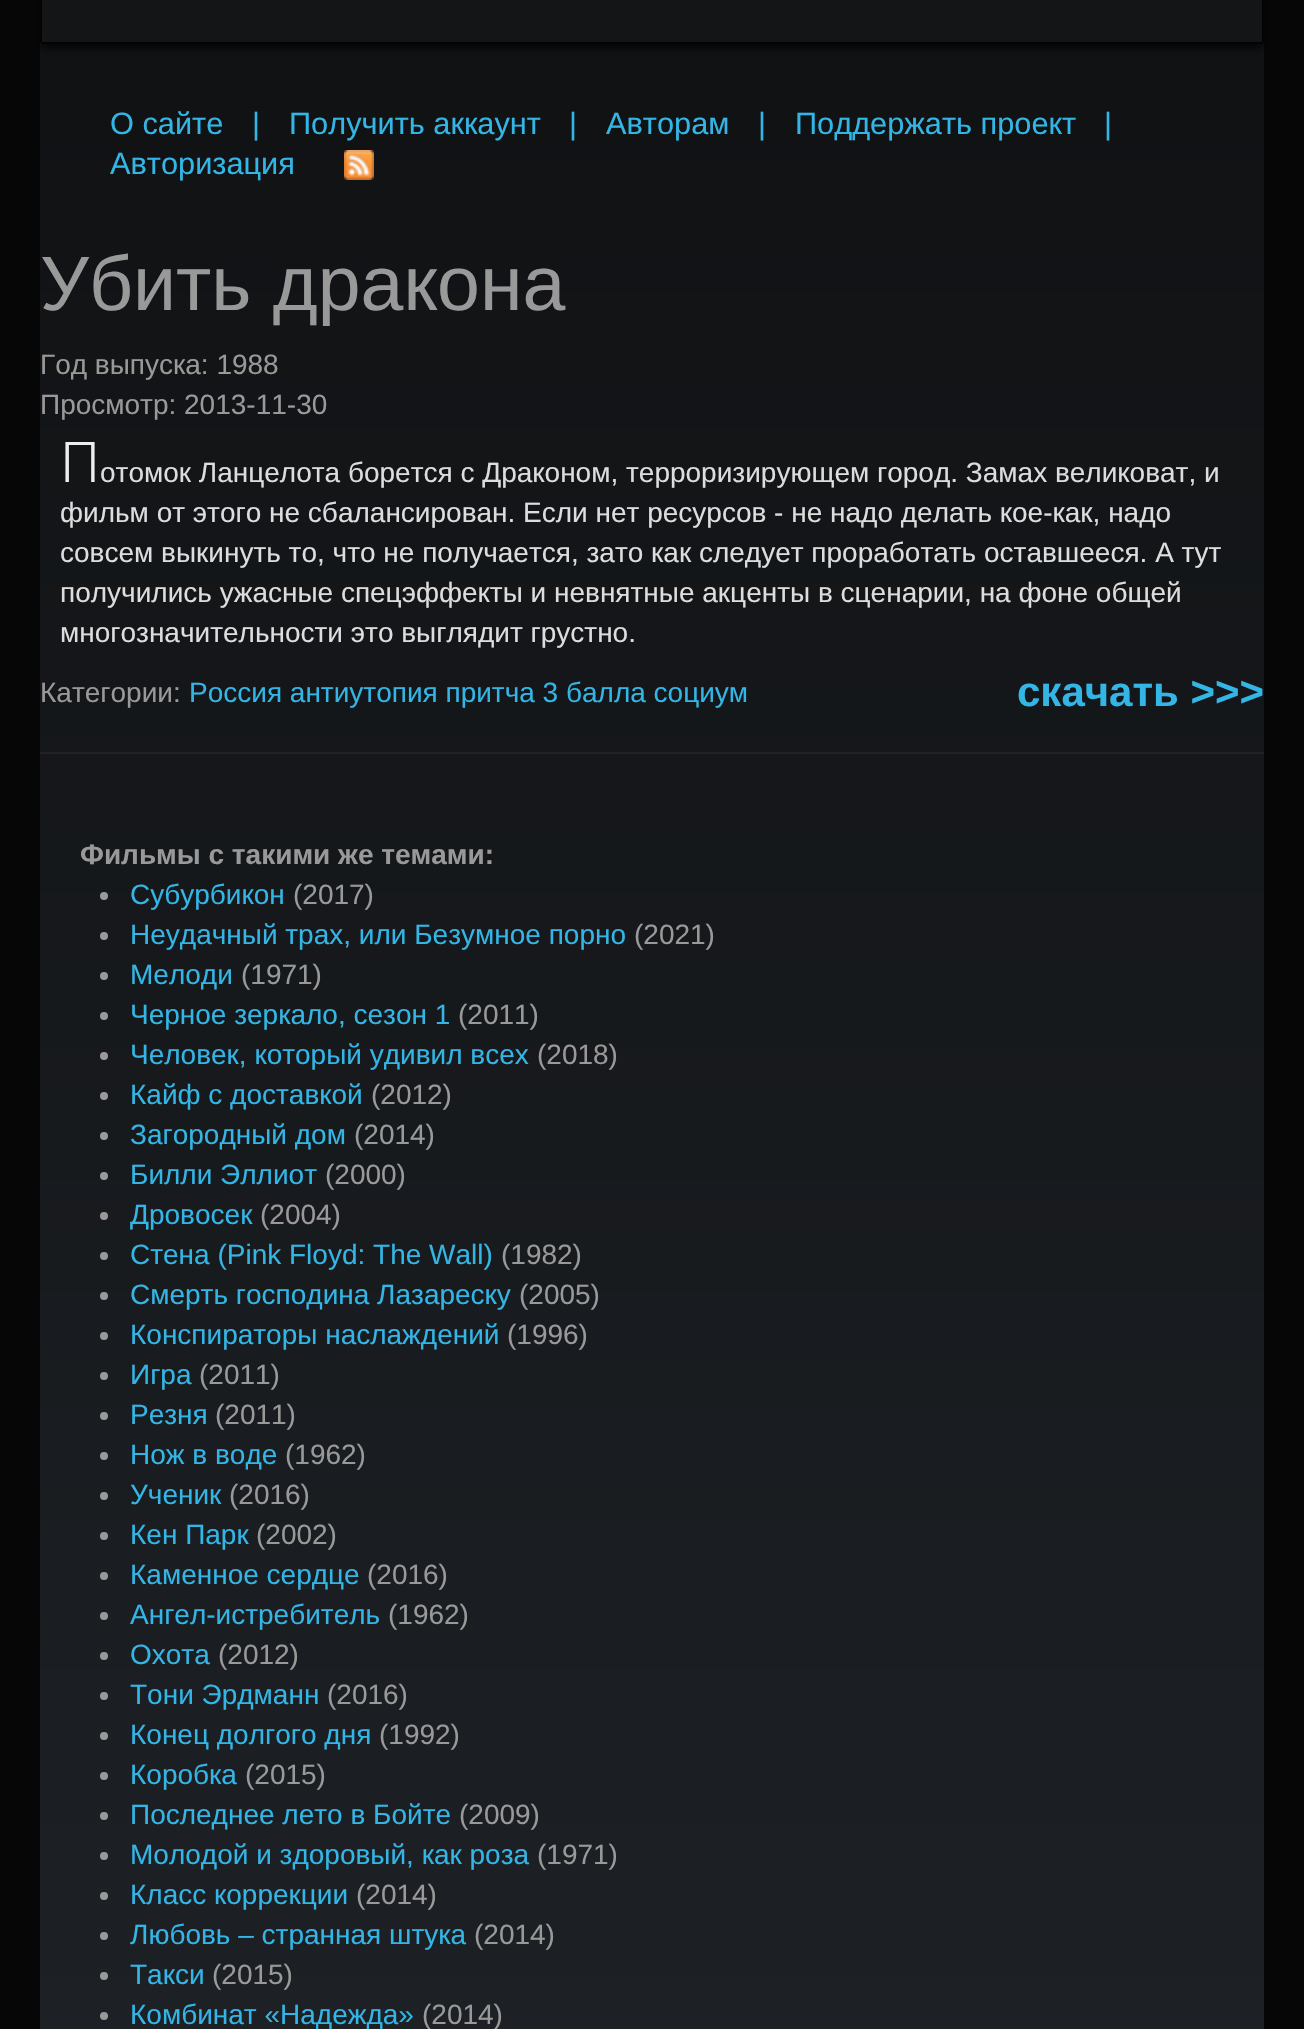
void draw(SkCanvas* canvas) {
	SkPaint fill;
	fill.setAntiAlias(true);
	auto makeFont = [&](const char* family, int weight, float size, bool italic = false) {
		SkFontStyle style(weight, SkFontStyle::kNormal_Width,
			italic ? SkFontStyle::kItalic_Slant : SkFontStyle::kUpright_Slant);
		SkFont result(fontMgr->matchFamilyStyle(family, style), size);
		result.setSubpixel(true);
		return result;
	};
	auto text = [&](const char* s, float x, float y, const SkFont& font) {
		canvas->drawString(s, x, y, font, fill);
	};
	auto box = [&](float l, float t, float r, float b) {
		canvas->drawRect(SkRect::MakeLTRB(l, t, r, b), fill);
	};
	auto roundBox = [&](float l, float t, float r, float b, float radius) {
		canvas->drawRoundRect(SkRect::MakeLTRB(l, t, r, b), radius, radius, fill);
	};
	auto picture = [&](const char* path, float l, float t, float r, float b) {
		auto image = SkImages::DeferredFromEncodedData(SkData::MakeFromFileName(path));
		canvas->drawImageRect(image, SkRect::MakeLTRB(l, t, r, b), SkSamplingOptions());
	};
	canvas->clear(0xFF060606);
	{
		const SkColor colors[] = {0xFF060606, 0xFF252A30};
		const float stops[] = {0, 1};
		const SkPoint ends[] = {{652, -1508}, {652, 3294}};
		fill.setShader(SkGradientShader::MakeLinear(ends, colors, stops, 2, SkTileMode::kClamp));
		fill.setAlpha(255);
	}
	box(40, 42, 1264, 2029);
	fill.setShader(nullptr);
	fill.setColor(0xCC000000);
	fill.setMaskFilter(SkMaskFilter::MakeBlur(kNormal_SkBlurStyle, 4));
	canvas->drawRoundRect(SkRect::MakeLTRB(40, -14, 1264, 48), 2, 2, fill);
	fill.setMaskFilter(nullptr);
	fill.setColor(0xFF131517);
	roundBox(40, -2, 1264, 44, 2);
	fill.setStyle(SkPaint::kStroke_Style);
	fill.setStrokeWidth(2);
	fill.setColor(0xFF030303);
	canvas->drawPath(SkPathBuilder().moveTo(1262.5f, -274.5f).lineTo(1263, 42).lineTo(1262, 43).lineTo(42, 43).lineTo(41, 42).lineTo(41.5f, -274.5f).detach(), fill);
	picture("image0.png", 344, 150, 374, 180);
	fill.setStyle(SkPaint::kFill_Style);
	fill.setColor(0xFF222222);
	box(40, 752, 1264, 754);
	fill.setColor(0xFF999999);
	canvas->drawCircle(104, 896, 4, fill);
	canvas->drawCircle(104, 936, 4, fill);
	canvas->drawCircle(104, 976, 4, fill);
	canvas->drawCircle(104, 1016, 4, fill);
	canvas->drawCircle(104, 1056, 4, fill);
	canvas->drawCircle(104, 1096, 4, fill);
	canvas->drawCircle(104, 1136, 4, fill);
	canvas->drawCircle(104, 1176, 4, fill);
	canvas->drawCircle(104, 1216, 4, fill);
	canvas->drawCircle(104, 1256, 4, fill);
	canvas->drawCircle(104, 1296, 4, fill);
	canvas->drawCircle(104, 1336, 4, fill);
	canvas->drawCircle(104, 1376, 4, fill);
	canvas->drawCircle(104, 1416, 4, fill);
	canvas->drawCircle(104, 1456, 4, fill);
	canvas->drawCircle(104, 1496, 4, fill);
	canvas->drawCircle(104, 1536, 4, fill);
	canvas->drawCircle(104, 1576, 4, fill);
	canvas->drawCircle(104, 1616, 4, fill);
	canvas->drawCircle(104, 1656, 4, fill);
	canvas->drawCircle(104, 1696, 4, fill);
	canvas->drawCircle(104, 1736, 4, fill);
	canvas->drawCircle(104, 1776, 4, fill);
	canvas->drawCircle(104, 1816, 4, fill);
	canvas->drawCircle(104, 1856, 4, fill);
	canvas->drawCircle(104, 1896, 4, fill);
	canvas->drawCircle(104, 1936, 4, fill);
	canvas->drawCircle(104, 1976, 4, fill);
	canvas->drawCircle(104, 2016, 4, fill);
	auto font1 = makeFont("Liberation Sans", 400, 30.75f);
	fill.setColor(0xFF33B5E5);
	text("О сайте", 110, 134, font1);
	text("|", 252, 134, font1);
	text("Получить аккаунт", 289, 134, font1);
	text("|", 569, 134, font1);
	text("Авторам", 606, 134, font1);
	text("|", 758, 134, font1);
	text("Поддержать проект", 795, 134, font1);
	text("|", 1104, 134, font1);
	text("Авторизация", 110, 174, font1);
	auto font2 = makeFont("Liberation Sans", 400, 77);
	fill.setColor(0xFF999999);
	text("Убить дракона", 40, 310, font2);
	auto font3 = makeFont("Liberation Sans", 400, 28);
	text("Год выпуска: 1988", 40, 374, font3);
	text("Просмотр: 2013-11-30", 40, 414, font3);
	auto font4 = makeFont("Noto Sans", 300, 56);
	fill.setColor(0xFFEEEEEE);
	text("П", 60, 482, font4);
	fill.setColor(0xFFDDDDDD);
	text("отомок Ланцелота борется с Драконом, терроризирующем город. Замах великоват, и", 100, 482, font3);
	text("фильм от этого не сбалансирован. Если нет ресурсов - не надо делать кое-как, надо", 60, 522, font3);
	text("совсем выкинуть то, что не получается, зато как следует проработать оставшееся. А тут", 60, 562, font3);
	text("получились ужасные спецэффекты и невнятные акценты в сценарии, на фоне общей", 60, 602, font3);
	text("многозначительности это выглядит грустно.", 60, 642, font3);
	fill.setColor(0xFF999999);
	text("Категории:", 40, 702, font3);
	fill.setColor(0xFF33B5E5);
	text("Россия антиутопия притча 3 балла социум", 189, 702, font3);
	auto font5 = makeFont("Liberation Sans", 700, 42);
	text("cкачать >>>", 1017, 706, font5);
	auto font6 = makeFont("Liberation Sans", 700, 28);
	fill.setColor(0xFF999999);
	text("Фильмы с такими же темами:", 80, 864, font6);
	fill.setColor(0xFF33B5E5);
	text("Субурбикон", 130, 904, font3);
	fill.setColor(0xFF999999);
	text("(2017)", 293, 904, font3);
	fill.setColor(0xFF33B5E5);
	text("Неудачный трах, или Безумное порно", 130, 944, font3);
	fill.setColor(0xFF999999);
	text("(2021)", 634, 944, font3);
	fill.setColor(0xFF33B5E5);
	text("Мелоди", 130, 984, font3);
	fill.setColor(0xFF999999);
	text("(1971)", 241, 984, font3);
	fill.setColor(0xFF33B5E5);
	text("Черное зеркало, сезон 1", 130, 1024, font3);
	fill.setColor(0xFF999999);
	text("(2011)", 458, 1024, font3);
	fill.setColor(0xFF33B5E5);
	text("Человек, который удивил всех", 130, 1064, font3);
	fill.setColor(0xFF999999);
	text("(2018)", 537, 1064, font3);
	fill.setColor(0xFF33B5E5);
	text("Кайф с доставкой", 130, 1104, font3);
	fill.setColor(0xFF999999);
	text("(2012)", 371, 1104, font3);
	fill.setColor(0xFF33B5E5);
	text("Загородный дом", 130, 1144, font3);
	fill.setColor(0xFF999999);
	text("(2014)", 354, 1144, font3);
	fill.setColor(0xFF33B5E5);
	text("Билли Эллиот", 130, 1184, font3);
	fill.setColor(0xFF999999);
	text("(2000)", 325, 1184, font3);
	fill.setColor(0xFF33B5E5);
	text("Дровосек", 130, 1224, font3);
	fill.setColor(0xFF999999);
	text("(2004)", 260, 1224, font3);
	fill.setColor(0xFF33B5E5);
	text("Стена (Pink Floyd: The Wall)", 130, 1264, font3);
	fill.setColor(0xFF999999);
	text("(1982)", 501, 1264, font3);
	fill.setColor(0xFF33B5E5);
	text("Смерть господина Лазареску", 130, 1304, font3);
	fill.setColor(0xFF999999);
	text("(2005)", 519, 1304, font3);
	fill.setColor(0xFF33B5E5);
	text("Конспираторы наслаждений", 130, 1344, font3);
	fill.setColor(0xFF999999);
	text("(1996)", 507, 1344, font3);
	fill.setColor(0xFF33B5E5);
	text("Игра", 130, 1384, font3);
	fill.setColor(0xFF999999);
	text("(2011)", 199, 1384, font3);
	fill.setColor(0xFF33B5E5);
	text("Резня", 130, 1424, font3);
	fill.setColor(0xFF999999);
	text("(2011)", 215, 1424, font3);
	fill.setColor(0xFF33B5E5);
	text("Нож в воде", 130, 1464, font3);
	fill.setColor(0xFF999999);
	text("(1962)", 285, 1464, font3);
	fill.setColor(0xFF33B5E5);
	text("Ученик", 130, 1504, font3);
	fill.setColor(0xFF999999);
	text("(2016)", 229, 1504, font3);
	fill.setColor(0xFF33B5E5);
	text("Кен Парк", 130, 1544, font3);
	fill.setColor(0xFF999999);
	text("(2002)", 256, 1544, font3);
	fill.setColor(0xFF33B5E5);
	text("Каменное сердце", 130, 1584, font3);
	fill.setColor(0xFF999999);
	text("(2016)", 367, 1584, font3);
	fill.setColor(0xFF33B5E5);
	text("Ангел-истребитель", 130, 1624, font3);
	fill.setColor(0xFF999999);
	text("(1962)", 388, 1624, font3);
	fill.setColor(0xFF33B5E5);
	text("Охота", 130, 1664, font3);
	fill.setColor(0xFF999999);
	text("(2012)", 218, 1664, font3);
	fill.setColor(0xFF33B5E5);
	text("Тони Эрдманн", 130, 1704, font3);
	fill.setColor(0xFF999999);
	text("(2016)", 327, 1704, font3);
	fill.setColor(0xFF33B5E5);
	text("Конец долгого дня", 130, 1744, font3);
	fill.setColor(0xFF999999);
	text("(1992)", 379, 1744, font3);
	fill.setColor(0xFF33B5E5);
	text("Коробка", 130, 1784, font3);
	fill.setColor(0xFF999999);
	text("(2015)", 245, 1784, font3);
	fill.setColor(0xFF33B5E5);
	text("Последнее лето в Бойте", 130, 1824, font3);
	fill.setColor(0xFF999999);
	text("(2009)", 459, 1824, font3);
	fill.setColor(0xFF33B5E5);
	text("Молодой и здоровый, как роза", 130, 1864, font3);
	fill.setColor(0xFF999999);
	text("(1971)", 537, 1864, font3);
	fill.setColor(0xFF33B5E5);
	text("Класс коррекции", 130, 1904, font3);
	fill.setColor(0xFF999999);
	text("(2014)", 356, 1904, font3);
	fill.setColor(0xFF33B5E5);
	text("Любовь – странная штука", 130, 1944, font3);
	fill.setColor(0xFF999999);
	text("(2014)", 474, 1944, font3);
	fill.setColor(0xFF33B5E5);
	text("Такси", 130, 1984, font3);
	fill.setColor(0xFF999999);
	text("(2015)", 212, 1984, font3);
	fill.setColor(0xFF33B5E5);
	text("Комбинат «Надежда»", 130, 2024, font3);
	fill.setColor(0xFF999999);
	text("(2014)", 422, 2024, font3);
}
